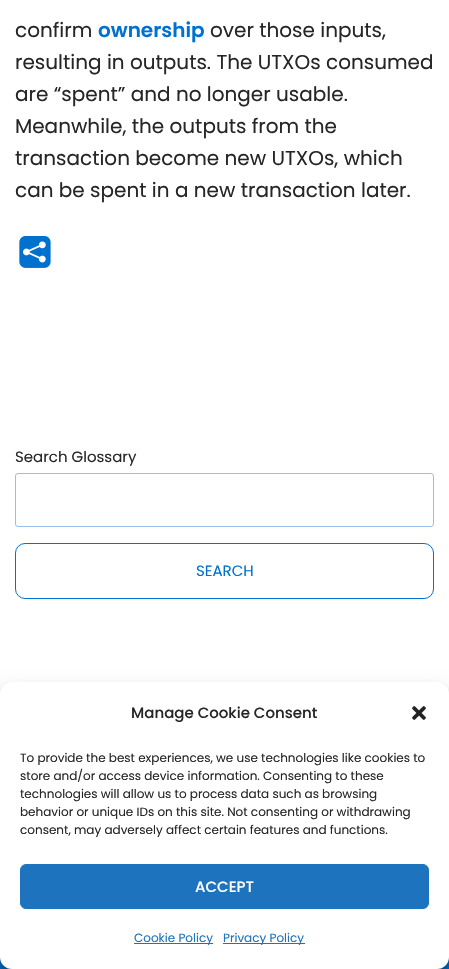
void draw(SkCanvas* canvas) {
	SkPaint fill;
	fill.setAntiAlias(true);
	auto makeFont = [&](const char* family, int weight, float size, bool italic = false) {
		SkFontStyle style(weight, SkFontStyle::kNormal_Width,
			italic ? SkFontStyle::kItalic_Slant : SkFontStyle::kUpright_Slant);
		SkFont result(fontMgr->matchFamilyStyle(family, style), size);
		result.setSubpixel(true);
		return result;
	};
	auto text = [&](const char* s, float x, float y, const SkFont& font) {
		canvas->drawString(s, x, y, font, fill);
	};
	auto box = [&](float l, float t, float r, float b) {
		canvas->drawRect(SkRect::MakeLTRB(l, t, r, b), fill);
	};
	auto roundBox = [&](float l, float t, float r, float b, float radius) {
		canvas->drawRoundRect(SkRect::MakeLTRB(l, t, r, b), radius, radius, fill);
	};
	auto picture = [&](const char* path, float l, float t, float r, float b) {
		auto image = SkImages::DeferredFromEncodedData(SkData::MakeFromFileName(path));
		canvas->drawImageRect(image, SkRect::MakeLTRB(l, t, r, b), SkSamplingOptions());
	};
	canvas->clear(0xFFFFFFFF);
	picture("image0.png", 19, 236, 51, 268);
	fill.setStyle(SkPaint::kStroke_Style);
	fill.setStrokeWidth(1);
	fill.setColor(0xFF92C0E9);
	canvas->drawRoundRect(SkRect::MakeLTRB(15.5f, 473.5f, 433.5f, 526.5f), 2.5f, 2.5f, fill);
	fill.setColor(0xFF0071CE);
	canvas->drawRoundRect(SkRect::MakeLTRB(15.5f, 543.5f, 433.5f, 598.5f), 9.5f, 9.5f, fill);
	fill.setStyle(SkPaint::kFill_Style);
	box(0, 957, 449, 969);
	fill.setColor(0x3B000000);
	fill.setMaskFilter(SkMaskFilter::MakeBlur(kNormal_SkBlurStyle, 3));
	canvas->drawRoundRect(SkRect::MakeLTRB(0, 688, 449, 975), 12, 12, fill);
	fill.setMaskFilter(nullptr);
	fill.setColor(0x30000000);
	fill.setMaskFilter(SkMaskFilter::MakeBlur(kNormal_SkBlurStyle, 10));
	canvas->drawRoundRect(SkRect::MakeLTRB(0, 692, 449, 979), 12, 12, fill);
	fill.setMaskFilter(nullptr);
	fill.setColor(0xFFFFFFFF);
	roundBox(0, 682, 449, 969, 12);
	picture("image1.png", 412, 706, 426, 720);
	fill.setColor(0xFF1E73BE);
	canvas->drawRoundRect(SkRect::MakeLTRB(20.5f, 864.5f, 428.5f, 908.5f), 5.5f, 5.5f, fill);
	fill.setStyle(SkPaint::kStroke_Style);
	canvas->drawRoundRect(SkRect::MakeLTRB(20.5f, 864.5f, 428.5f, 908.5f), 5.5f, 5.5f, fill);
	fill.setStyle(SkPaint::kFill_Style);
	box(134, 943, 213, 944);
	box(223, 943, 305, 944);
	auto font1 = makeFont("Poppins", 400, 20);
	fill.setColor(0xFF272626);
	text("confirm", 15, 37, font1);
	auto font2 = makeFont("Poppins", 600, 20);
	fill.setColor(0xFF0071CE);
	text("ownership", 98, 37, font2);
	fill.setColor(0xFF272626);
	text("over those inputs,", 210, 37, font1);
	text("resulting in outputs. The UTXOs consumed", 15, 69, font1);
	text("are “spent” and no longer usable.", 15, 101, font1);
	text("Meanwhile, the outputs from the", 15, 133, font1);
	text("transaction become new UTXOs, which", 15, 165, font1);
	text("can be spent in a new transaction later.", 15, 197, font1);
	auto font3 = makeFont("Poppins", 400, 15);
	text("Search Glossary", 15, 462, font3);
	fill.setColor(0xFF0071CE);
	text("SEARCH", 196, 576, font3);
	auto font4 = makeFont("Poppins", 500, 15);
	fill.setColor(0xFF272626);
	text("Manage Cookie Consent", 131, 718, font4);
	auto font5 = makeFont("Poppins", 400, 12);
	text("To provide the best experiences, we use technologies like cookies to", 20, 762, font5);
	text("store and/or access device information. Consenting to these", 20, 780, font5);
	text("technologies will allow us to process data such as browsing", 20, 798, font5);
	text("behavior or unique IDs on this site. Not consenting or withdrawing", 20, 816, font5);
	text("consent, may adversely affect certain features and functions.", 20, 834, font5);
	fill.setColor(0xFFFFFFFF);
	text("ACCEPT", 195, 892, font4);
	fill.setColor(0xFF1E73BE);
	text("Cookie Policy", 134, 942, font5);
	text("Privacy Policy", 223, 942, font5);
}
